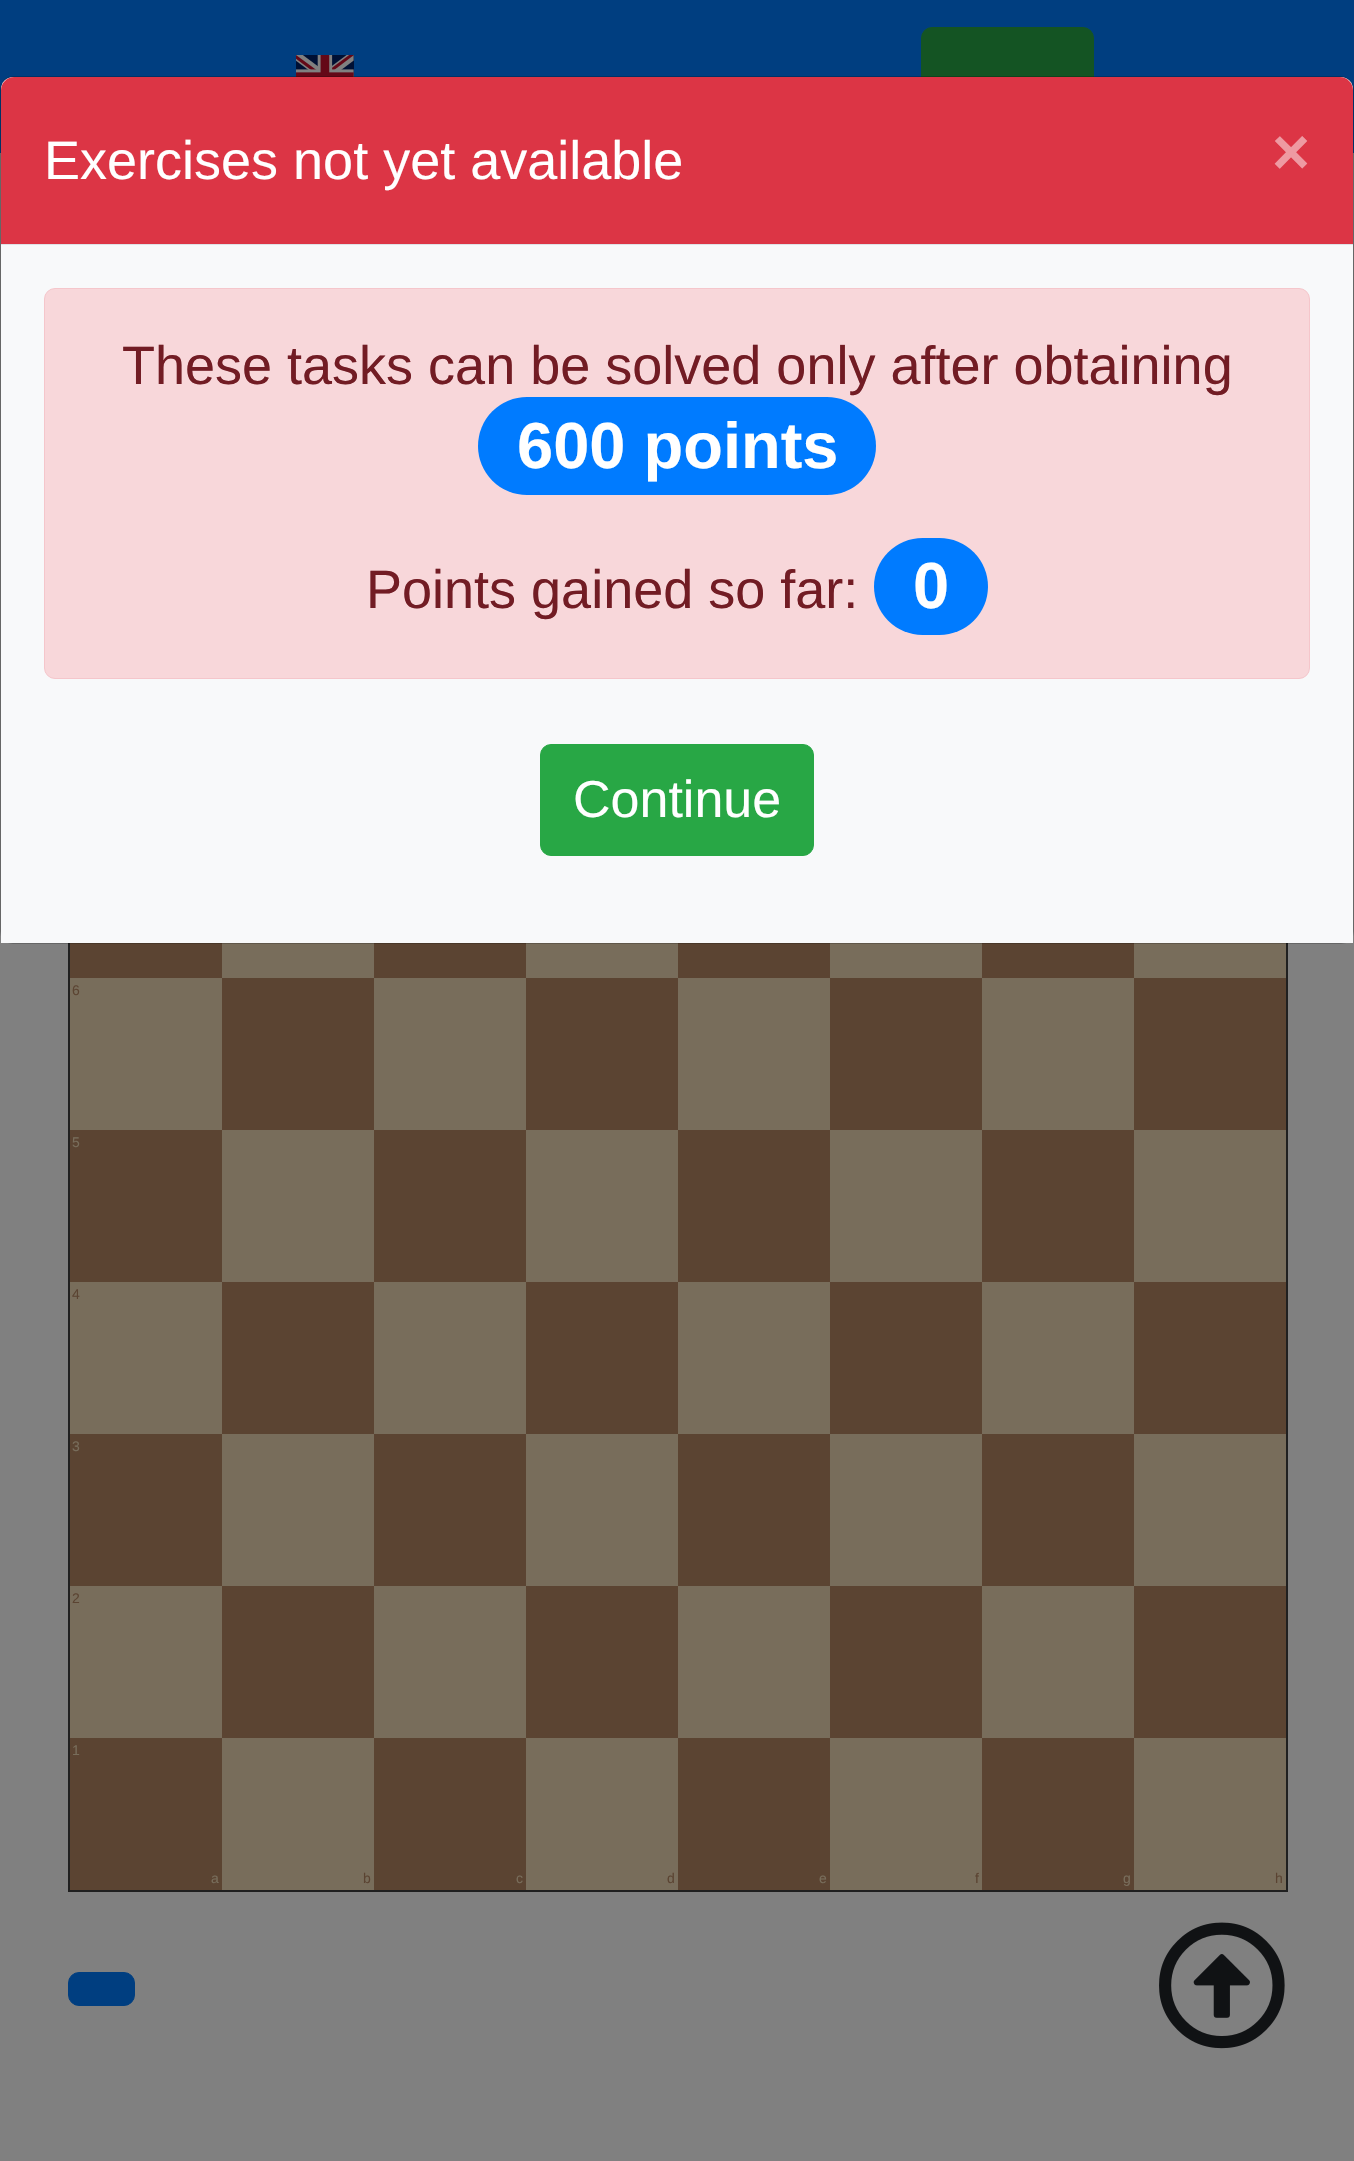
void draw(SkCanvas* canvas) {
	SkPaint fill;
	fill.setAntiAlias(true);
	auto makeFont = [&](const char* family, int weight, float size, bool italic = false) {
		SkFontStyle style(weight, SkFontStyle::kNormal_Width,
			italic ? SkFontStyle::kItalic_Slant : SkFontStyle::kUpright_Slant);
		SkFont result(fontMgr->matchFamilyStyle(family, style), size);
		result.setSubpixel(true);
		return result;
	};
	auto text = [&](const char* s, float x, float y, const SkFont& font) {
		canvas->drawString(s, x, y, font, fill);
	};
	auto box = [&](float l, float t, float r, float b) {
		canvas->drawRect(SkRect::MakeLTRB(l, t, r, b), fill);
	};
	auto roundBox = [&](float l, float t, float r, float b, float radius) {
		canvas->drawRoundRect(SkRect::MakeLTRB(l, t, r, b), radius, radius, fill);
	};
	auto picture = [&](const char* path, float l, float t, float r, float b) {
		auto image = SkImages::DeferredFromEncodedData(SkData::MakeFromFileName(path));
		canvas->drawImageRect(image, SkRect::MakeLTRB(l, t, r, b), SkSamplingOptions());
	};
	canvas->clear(0xFF808080);
	fill.setColor(0xFF003E80);
	box(0, 0, 1354, 153);
	picture("image0.png", 296, 55, 354, 77);
	fill.setColor(0xFF145423);
	canvas->drawRoundRect(SkRect::MakeLTRB(921.5f, 27.5f, 1093.5f, 125.5f), 10.5f, 10.5f, fill);
	fill.setStyle(SkPaint::kStroke_Style);
	fill.setStrokeWidth(1);
	canvas->drawRoundRect(SkRect::MakeLTRB(921.5f, 27.5f, 1093.5f, 125.5f), 10.5f, 10.5f, fill);
	fill.setStrokeWidth(2);
	fill.setColor(0xFF202020);
	canvas->drawRect(SkRect::MakeLTRB(69, 673, 1287, 1891), fill);
	fill.setStyle(SkPaint::kFill_Style);
	fill.setColor(0xFFFFFFFF);
	roundBox(1, 77, 1353, 943, 12);
	fill.setColor(0xFF5B4432);
	box(70, 943, 222, 978);
	fill.setColor(0xFF786D5B);
	box(222, 943, 374, 978);
	fill.setColor(0xFF5B4432);
	box(374, 943, 526, 978);
	fill.setColor(0xFF786D5B);
	box(526, 943, 678, 978);
	fill.setColor(0xFF5B4432);
	box(678, 943, 830, 978);
	fill.setColor(0xFF786D5B);
	box(830, 943, 982, 978);
	fill.setColor(0xFF5B4432);
	box(982, 943, 1134, 978);
	fill.setColor(0xFF786D5B);
	box(1134, 943, 1286, 978);
	fill.setStyle(SkPaint::kStroke_Style);
	fill.setStrokeWidth(1);
	fill.setColor(0x33000000);
	canvas->drawRoundRect(SkRect::MakeLTRB(0.5f, 76.5f, 1353.5f, 943.5f), 12.5f, 12.5f, fill);
	fill.setStyle(SkPaint::kFill_Style);
	fill.setColor(0xFFDC3545);
	canvas->drawPath(SkPathBuilder().moveTo(14, 77).lineTo(1340, 77).cubicTo(1347, 77, 1353, 83, 1353, 90).lineTo(1353, 245).lineTo(1, 245).lineTo(1, 90).cubicTo(1, 83, 7, 77, 14, 77).close().detach(), fill);
	fill.setColor(0xFFDEE2E6);
	box(1, 244, 1353, 245);
	fill.setColor(0xFFF8F9FA);
	box(1, 245, 1353, 943);
	fill.setColor(0xFFF8D7DA);
	canvas->drawRoundRect(SkRect::MakeLTRB(44.5f, 288.5f, 1309.5f, 678.5f), 10.5f, 10.5f, fill);
	fill.setStyle(SkPaint::kStroke_Style);
	fill.setColor(0xFFF5C6CB);
	canvas->drawRoundRect(SkRect::MakeLTRB(44.5f, 288.5f, 1309.5f, 678.5f), 10.5f, 10.5f, fill);
	fill.setStyle(SkPaint::kFill_Style);
	fill.setColor(0xFF007BFF);
	roundBox(478, 397, 876, 495, 49);
	roundBox(874, 538, 988, 635, 48.5f);
	fill.setColor(0xFF28A745);
	canvas->drawRoundRect(SkRect::MakeLTRB(540.5f, 744.5f, 813.5f, 855.5f), 10.5f, 10.5f, fill);
	fill.setStyle(SkPaint::kStroke_Style);
	canvas->drawRoundRect(SkRect::MakeLTRB(540.5f, 744.5f, 813.5f, 855.5f), 10.5f, 10.5f, fill);
	fill.setStyle(SkPaint::kFill_Style);
	fill.setColor(0xFF786D5B);
	box(70, 978, 222, 1130);
	fill.setColor(0xFF5B4432);
	box(222, 978, 374, 1130);
	fill.setColor(0xFF786D5B);
	box(374, 978, 526, 1130);
	fill.setColor(0xFF5B4432);
	box(526, 978, 678, 1130);
	fill.setColor(0xFF786D5B);
	box(678, 978, 830, 1130);
	fill.setColor(0xFF5B4432);
	box(830, 978, 982, 1130);
	fill.setColor(0xFF786D5B);
	box(982, 978, 1134, 1130);
	fill.setColor(0xFF5B4432);
	box(1134, 978, 1286, 1130);
	box(70, 1130, 222, 1282);
	fill.setColor(0xFF786D5B);
	box(222, 1130, 374, 1282);
	fill.setColor(0xFF5B4432);
	box(374, 1130, 526, 1282);
	fill.setColor(0xFF786D5B);
	box(526, 1130, 678, 1282);
	fill.setColor(0xFF5B4432);
	box(678, 1130, 830, 1282);
	fill.setColor(0xFF786D5B);
	box(830, 1130, 982, 1282);
	fill.setColor(0xFF5B4432);
	box(982, 1130, 1134, 1282);
	fill.setColor(0xFF786D5B);
	box(1134, 1130, 1286, 1282);
	box(70, 1282, 222, 1434);
	fill.setColor(0xFF5B4432);
	box(222, 1282, 374, 1434);
	fill.setColor(0xFF786D5B);
	box(374, 1282, 526, 1434);
	fill.setColor(0xFF5B4432);
	box(526, 1282, 678, 1434);
	fill.setColor(0xFF786D5B);
	box(678, 1282, 830, 1434);
	fill.setColor(0xFF5B4432);
	box(830, 1282, 982, 1434);
	fill.setColor(0xFF786D5B);
	box(982, 1282, 1134, 1434);
	fill.setColor(0xFF5B4432);
	box(1134, 1282, 1286, 1434);
	box(70, 1434, 222, 1586);
	fill.setColor(0xFF786D5B);
	box(222, 1434, 374, 1586);
	fill.setColor(0xFF5B4432);
	box(374, 1434, 526, 1586);
	fill.setColor(0xFF786D5B);
	box(526, 1434, 678, 1586);
	fill.setColor(0xFF5B4432);
	box(678, 1434, 830, 1586);
	fill.setColor(0xFF786D5B);
	box(830, 1434, 982, 1586);
	fill.setColor(0xFF5B4432);
	box(982, 1434, 1134, 1586);
	fill.setColor(0xFF786D5B);
	box(1134, 1434, 1286, 1586);
	box(70, 1586, 222, 1738);
	fill.setColor(0xFF5B4432);
	box(222, 1586, 374, 1738);
	fill.setColor(0xFF786D5B);
	box(374, 1586, 526, 1738);
	fill.setColor(0xFF5B4432);
	box(526, 1586, 678, 1738);
	fill.setColor(0xFF786D5B);
	box(678, 1586, 830, 1738);
	fill.setColor(0xFF5B4432);
	box(830, 1586, 982, 1738);
	fill.setColor(0xFF786D5B);
	box(982, 1586, 1134, 1738);
	fill.setColor(0xFF5B4432);
	box(1134, 1586, 1286, 1738);
	box(70, 1738, 222, 1890);
	fill.setColor(0xFF786D5B);
	box(222, 1738, 374, 1890);
	fill.setColor(0xFF5B4432);
	box(374, 1738, 526, 1890);
	fill.setColor(0xFF786D5B);
	box(526, 1738, 678, 1890);
	fill.setColor(0xFF5B4432);
	box(678, 1738, 830, 1890);
	fill.setColor(0xFF786D5B);
	box(830, 1738, 982, 1890);
	fill.setColor(0xFF5B4432);
	box(982, 1738, 1134, 1890);
	fill.setColor(0xFF786D5B);
	box(1134, 1738, 1286, 1890);
	fill.setColor(0xFF003E80);
	canvas->drawRoundRect(SkRect::MakeLTRB(68.5f, 1972.5f, 134.5f, 2005.5f), 10.5f, 10.5f, fill);
	fill.setStyle(SkPaint::kStroke_Style);
	canvas->drawRoundRect(SkRect::MakeLTRB(68.5f, 1972.5f, 134.5f, 2005.5f), 10.5f, 10.5f, fill);
	picture("image1.png", 1159, 1922, 1285, 2049);
	auto font1 = makeFont("Liberation Sans", 400, 54);
	fill.setStyle(SkPaint::kFill_Style);
	fill.setColor(0xFFFFFFFF);
	text("Exercises not yet available", 44, 179, font1);
	auto font2 = makeFont("Liberation Sans", 700, 65);
	fill.setColor(0xFFEE9AA2);
	text("×", 1272, 174, font2);
	fill.setColor(0xFF721C24);
	text("These tasks can be solved only after obtaining", 122, 384, font1);
	fill.setColor(0xFFFFFFFF);
	text("600 points", 517, 468, font2);
	fill.setColor(0xFF721C24);
	text("Points gained so far:", 366, 608, font1);
	fill.setColor(0xFFFFFFFF);
	text("0", 913, 608, font2);
	auto font3 = makeFont("Liberation Sans", 400, 52);
	text("Continue", 573, 817, font3);
	auto font4 = makeFont("Liberation Sans", 400, 14);
	fill.setColor(0xFF5B4432);
	text("6", 72, 995, font4);
	fill.setColor(0xFF786D5B);
	text("5", 72, 1147, font4);
	fill.setColor(0xFF5B4432);
	text("4", 72, 1299, font4);
	fill.setColor(0xFF786D5B);
	text("3", 72, 1451, font4);
	fill.setColor(0xFF5B4432);
	text("2", 72, 1603, font4);
	fill.setColor(0xFF786D5B);
	text("1", 72, 1755, font4);
	text("a", 211, 1883, font4);
	fill.setColor(0xFF5B4432);
	text("b", 363, 1883, font4);
	fill.setColor(0xFF786D5B);
	text("c", 516, 1883, font4);
	fill.setColor(0xFF5B4432);
	text("d", 667, 1883, font4);
	fill.setColor(0xFF786D5B);
	text("e", 819, 1883, font4);
	fill.setColor(0xFF5B4432);
	text("f", 975, 1883, font4);
	fill.setColor(0xFF786D5B);
	text("g", 1123, 1883, font4);
	fill.setColor(0xFF5B4432);
	text("h", 1275, 1883, font4);
}
